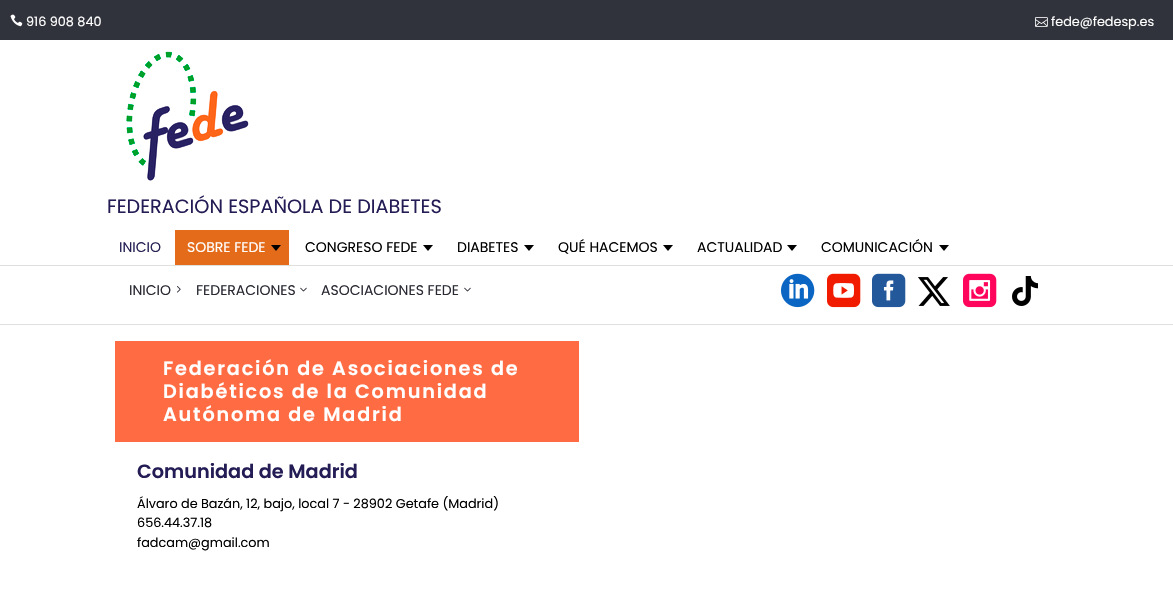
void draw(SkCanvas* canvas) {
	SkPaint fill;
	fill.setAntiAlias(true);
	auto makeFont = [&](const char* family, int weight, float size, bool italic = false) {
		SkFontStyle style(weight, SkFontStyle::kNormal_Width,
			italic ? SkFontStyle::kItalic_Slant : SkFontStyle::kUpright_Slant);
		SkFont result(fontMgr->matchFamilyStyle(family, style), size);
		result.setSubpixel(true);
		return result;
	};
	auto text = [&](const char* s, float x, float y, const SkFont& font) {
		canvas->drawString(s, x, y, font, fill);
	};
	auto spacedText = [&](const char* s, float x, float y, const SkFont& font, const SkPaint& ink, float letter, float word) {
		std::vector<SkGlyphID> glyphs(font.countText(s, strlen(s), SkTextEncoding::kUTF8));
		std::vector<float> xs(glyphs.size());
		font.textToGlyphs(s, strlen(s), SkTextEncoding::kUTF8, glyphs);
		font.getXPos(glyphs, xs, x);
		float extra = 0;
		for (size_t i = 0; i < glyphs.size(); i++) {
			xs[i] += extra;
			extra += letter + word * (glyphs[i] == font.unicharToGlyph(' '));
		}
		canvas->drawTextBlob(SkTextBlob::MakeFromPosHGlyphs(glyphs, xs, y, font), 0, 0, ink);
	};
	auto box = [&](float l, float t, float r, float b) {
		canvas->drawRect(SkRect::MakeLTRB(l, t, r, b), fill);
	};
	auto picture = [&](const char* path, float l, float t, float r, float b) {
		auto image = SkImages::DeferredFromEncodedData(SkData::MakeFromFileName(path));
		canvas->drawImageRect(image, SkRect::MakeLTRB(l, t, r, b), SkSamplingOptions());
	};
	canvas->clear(0xFFFFFFFF);
	fill.setColor(0xFF30333B);
	box(0, 0, 1173, 40);
	picture("image0.png", 10, 14, 23, 27);
	picture("image1.png", 1035, 17, 1048, 27);
	picture("image2.png", 126, 51, 249, 181);
	fill.setColor(0xFFE46B1A);
	box(175, 230, 289, 265);
	fill.setColor(0xFF000000);
	canvas->drawPath(SkPathBuilder().moveTo(271, 245).lineTo(281, 245).lineTo(276, 251).close().detach(), fill);
	canvas->drawPath(SkPathBuilder().moveTo(423, 245).lineTo(433, 245).lineTo(428, 251).close().detach(), fill);
	canvas->drawPath(SkPathBuilder().moveTo(524, 245).lineTo(534, 245).lineTo(529, 251).close().detach(), fill);
	canvas->drawPath(SkPathBuilder().moveTo(663, 245).lineTo(673, 245).lineTo(668, 251).close().detach(), fill);
	canvas->drawPath(SkPathBuilder().moveTo(787, 245).lineTo(797, 245).lineTo(792, 251).close().detach(), fill);
	canvas->drawPath(SkPathBuilder().moveTo(939, 245).lineTo(949, 245).lineTo(944, 251).close().detach(), fill);
	fill.setColor(0xFFDFDFDF);
	box(0, 265, 1173, 266);
	box(0, 324, 1173, 325);
	picture("image3.png", 177, 286, 181, 293);
	picture("image4.png", 300, 287, 307, 292);
	picture("image4.png", 464, 287, 471, 292);
	picture("image5.png", 781, 273, 815, 308);
	picture("image6.png", 827, 273, 861, 308);
	picture("image7.png", 872, 273, 906, 308);
	picture("image8.png", 918, 277, 950, 306);
	picture("image9.png", 963, 273, 997, 308);
	picture("image10.png", 1012, 276, 1038, 306);
	fill.setColor(0xFFFF6B43);
	box(115, 341, 579, 442);
	auto font1 = makeFont("Poppins", 400, 12.8f);
	fill.setColor(0xFFFFFFFF);
	text("916 908 840", 26, 26, font1);
	text("fede@fedesp.es", 1051, 26, font1);
	auto font2 = makeFont("Poppins", 400, 19.25f);
	fill.setColor(0xFF231C55);
	text("FEDERACIÓN ESPAÑOLA DE DIABETES", 107, 213, font2);
	auto font3 = makeFont("Poppins", 400, 14);
	fill.setColor(0xFF262254);
	text("INICIO", 119, 252, font3);
	fill.setColor(0xFFFFFFFF);
	text("SOBRE FEDE", 187, 252, font3);
	fill.setColor(0xFF000000);
	text("CONGRESO FEDE", 305, 252, font3);
	text("DIABETES", 457, 252, font3);
	text("QUÉ HACEMOS", 558, 252, font3);
	text("ACTUALIDAD", 697, 252, font3);
	text("COMUNICACIÓN", 821, 252, font3);
	fill.setColor(0xFF292A33);
	text("INICIO", 129, 295, font3);
	text("FEDERACIONES", 196, 295, font3);
	text("ASOCIACIONES FEDE", 321, 295, font3);
	auto font4 = makeFont("Poppins", 600, 19.25f);
	fill.setColor(0xFFFFFFFF);
	spacedText("Federación de Asociaciones de", 163, 375, font4, fill, 1.8f, 0);
	spacedText("Diabéticos de la Comunidad", 163, 398, font4, fill, 1.8f, 0);
	spacedText("Autónoma de Madrid", 163, 421, font4, fill, 1.8f, 0);
	fill.setColor(0xFF231C55);
	text("Comunidad de Madrid", 137, 478, font4);
	fill.setColor(0xFF000000);
	text("Álvaro de Bazán, 12, bajo, local 7 - 28902 Getafe (Madrid)", 137, 508, font1);
	text("656.44.37.18", 137, 527, font1);
	text("fadcam@gmail.com", 137, 547, font1);
}
